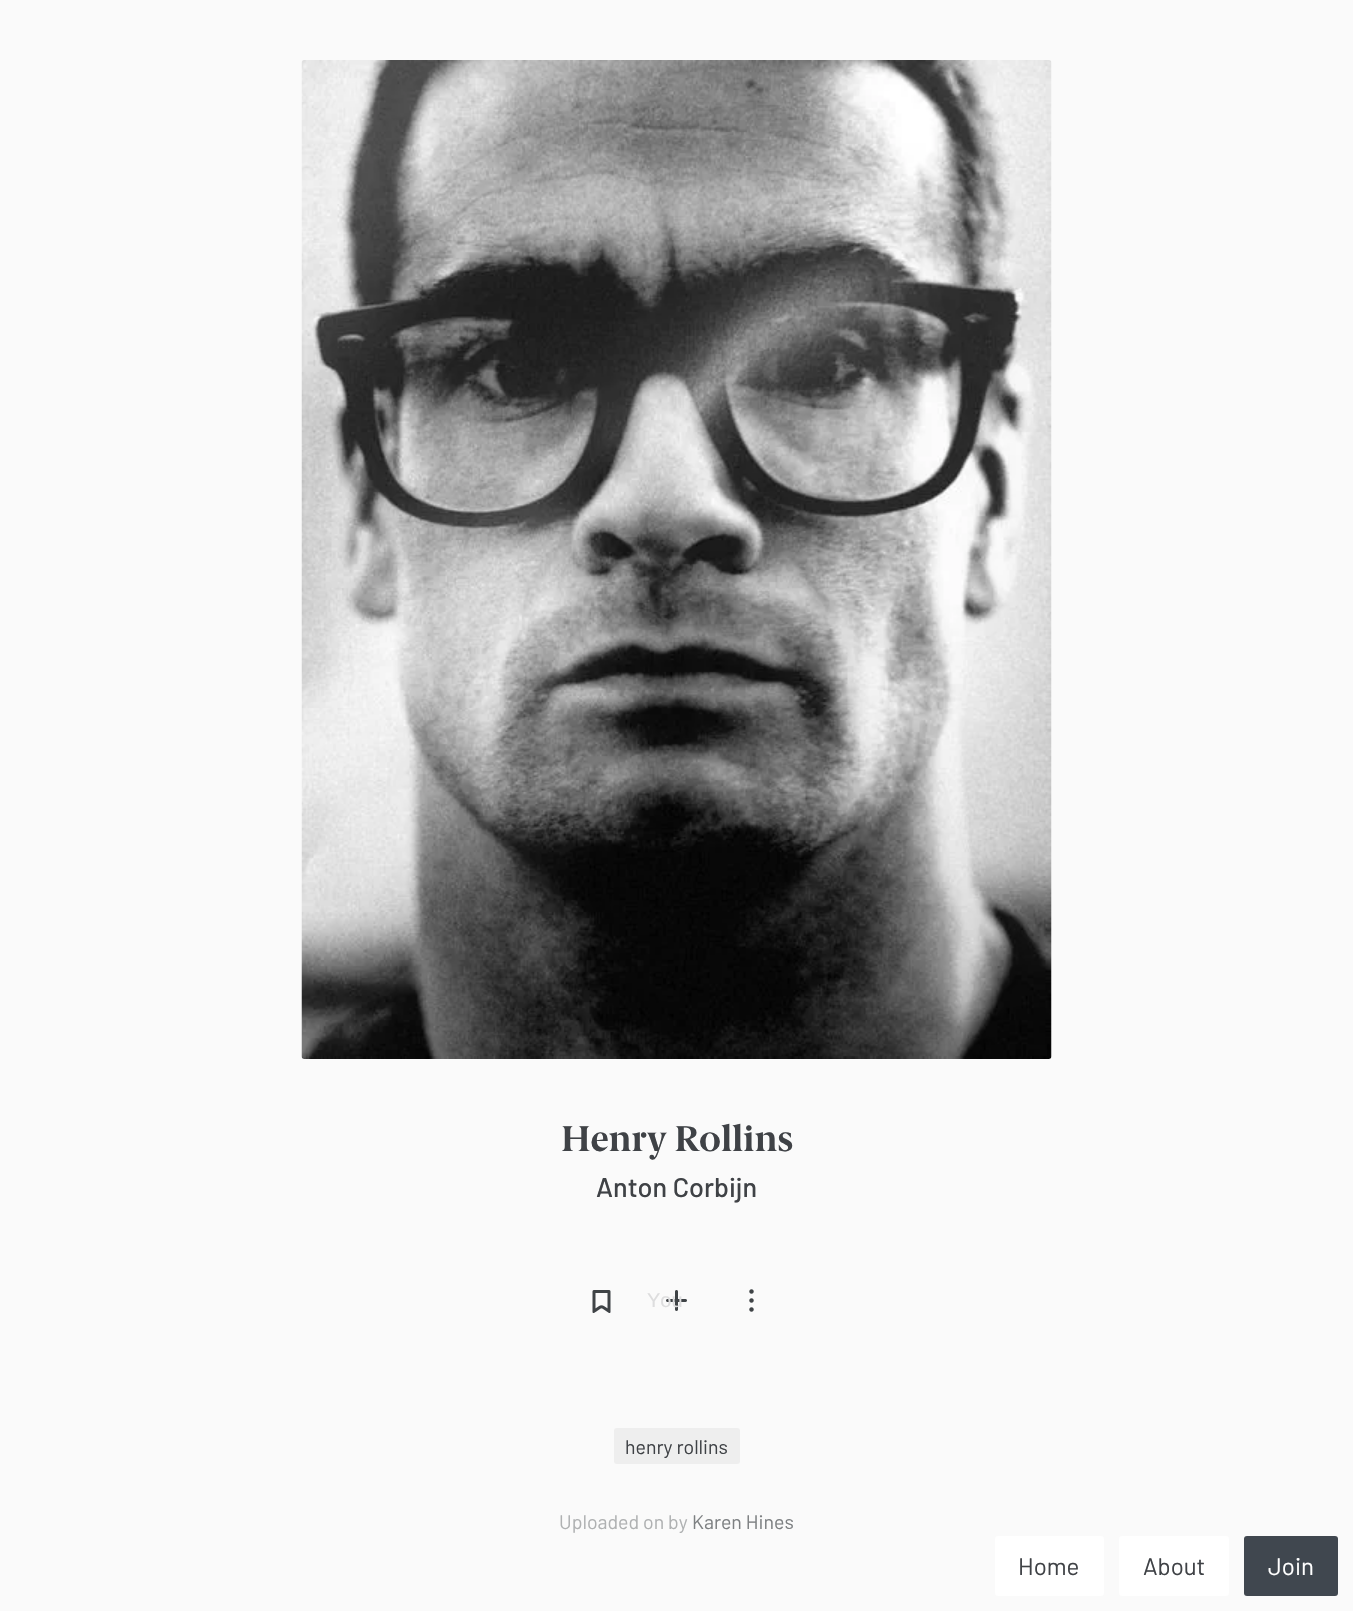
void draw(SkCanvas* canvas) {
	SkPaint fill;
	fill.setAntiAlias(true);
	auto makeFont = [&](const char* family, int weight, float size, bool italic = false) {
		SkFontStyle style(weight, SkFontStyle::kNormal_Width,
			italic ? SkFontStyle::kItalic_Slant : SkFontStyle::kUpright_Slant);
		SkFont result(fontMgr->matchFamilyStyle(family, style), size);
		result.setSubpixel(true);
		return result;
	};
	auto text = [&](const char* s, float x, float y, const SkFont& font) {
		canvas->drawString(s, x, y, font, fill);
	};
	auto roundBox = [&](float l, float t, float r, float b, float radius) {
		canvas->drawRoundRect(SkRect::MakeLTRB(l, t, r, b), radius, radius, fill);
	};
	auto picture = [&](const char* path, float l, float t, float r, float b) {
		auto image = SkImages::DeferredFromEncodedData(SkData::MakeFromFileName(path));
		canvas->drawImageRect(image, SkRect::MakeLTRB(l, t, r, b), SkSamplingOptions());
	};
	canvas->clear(0xFFFAFAFA);
	picture("image0.png", 301, 60, 1052, 1059);
	picture("image1.png", 592, 1290, 611, 1313);
	picture("image2.png", 666, 1290, 687, 1311);
	picture("image3.png", 749, 1289, 754, 1312);
	fill.setColor(0xFFEEEEEE);
	roundBox(614, 1428, 740, 1464, 3);
	fill.setColor(0xFFFFFFFF);
	roundBox(995, 1536, 1104, 1596, 3);
	roundBox(1119, 1536, 1229, 1596, 3);
	fill.setColor(0xFF40474F);
	roundBox(1244, 1536, 1338, 1596, 3);
	auto font1 = makeFont("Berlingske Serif", 700, 36);
	fill.setColor(0xFF3F4246);
	text("Henry Rollins", 561, 1151, font1);
	auto font2 = makeFont("Barlow", 500, 27);
	text("Anton Corbijn", 596, 1197, font2);
	auto font3 = makeFont("Liberation Sans", 400, 20);
	fill.setColor(0xFFDDDDDE);
	text("You", 647, 1307, font3);
	auto font4 = makeFont("Barlow", 400, 19.5f);
	fill.setColor(0xFF3F4246);
	text("henry rollins", 625, 1454, font4);
	fill.setColor(0xFFAFB1B2);
	text("Uploaded on by", 559, 1529, font4);
	fill.setColor(0xFF7D8082);
	text("Karen Hines", 692, 1529, font4);
	auto font5 = makeFont("Barlow", 400, 24);
	fill.setColor(0xFF3F4246);
	text("Home", 1018, 1575, font5);
	text("About", 1143, 1575, font5);
	fill.setColor(0xFFFFFFFF);
	text("Join", 1268, 1575, font5);
}
